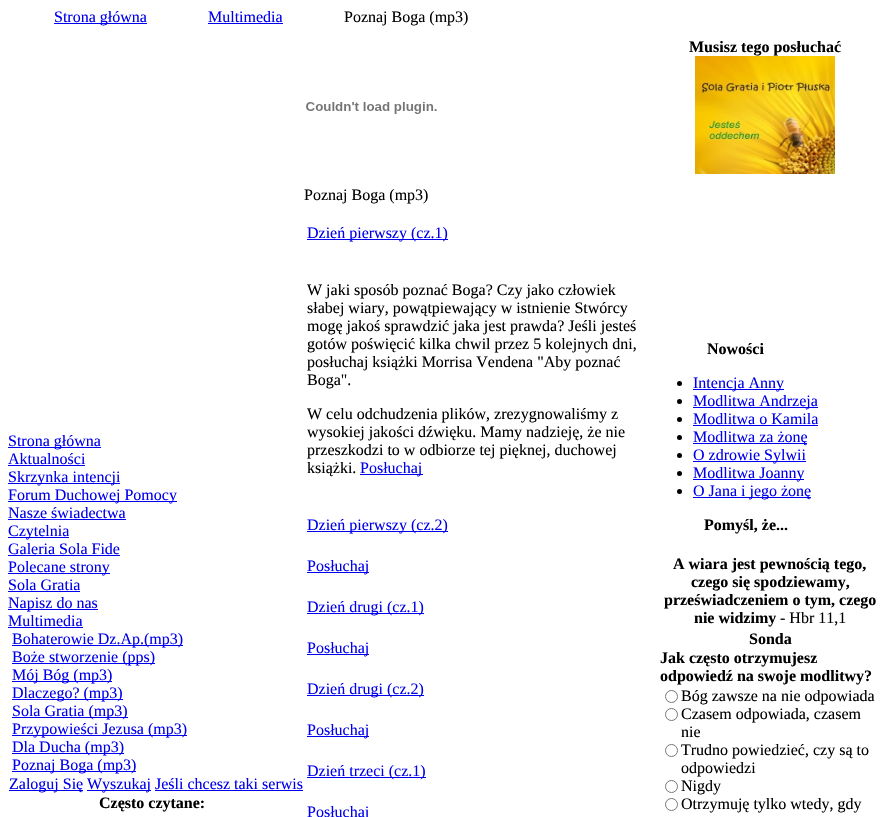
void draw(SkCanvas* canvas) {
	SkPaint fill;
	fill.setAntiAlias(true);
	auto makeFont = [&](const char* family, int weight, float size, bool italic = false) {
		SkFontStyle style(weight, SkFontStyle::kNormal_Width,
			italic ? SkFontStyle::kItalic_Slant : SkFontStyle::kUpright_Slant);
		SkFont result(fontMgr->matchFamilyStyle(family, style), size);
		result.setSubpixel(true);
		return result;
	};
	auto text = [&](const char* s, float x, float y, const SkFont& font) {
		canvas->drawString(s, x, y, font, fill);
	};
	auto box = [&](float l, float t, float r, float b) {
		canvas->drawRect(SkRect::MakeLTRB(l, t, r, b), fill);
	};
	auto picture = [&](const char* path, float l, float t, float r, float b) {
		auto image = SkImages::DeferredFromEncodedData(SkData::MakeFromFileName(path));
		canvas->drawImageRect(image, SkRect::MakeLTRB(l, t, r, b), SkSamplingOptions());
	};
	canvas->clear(0xFFFFFFFF);
	fill.setColor(0xFF0000EE);
	box(54, 23, 147, 24);
	box(208, 23, 283, 24);
	picture("image0.png", 695, 56, 835, 174);
	picture("image1.png", 306, 102, 437, 114);
	box(8, 447, 101, 448);
	box(8, 465, 85, 466);
	box(8, 483, 120, 484);
	box(8, 501, 177, 502);
	box(8, 519, 126, 520);
	box(8, 537, 69, 538);
	box(8, 555, 120, 556);
	box(8, 573, 110, 574);
	box(8, 591, 80, 592);
	box(8, 609, 98, 610);
	box(8, 627, 83, 628);
	box(12, 645, 183, 646);
	box(12, 663, 155, 664);
	box(12, 681, 112, 682);
	box(12, 699, 123, 700);
	box(12, 717, 128, 718);
	box(12, 735, 187, 736);
	box(12, 753, 124, 754);
	box(12, 771, 136, 772);
	box(9, 790, 83, 791);
	box(87, 790, 151, 791);
	box(155, 790, 303, 791);
	box(307, 239, 448, 240);
	box(360, 474, 423, 475);
	box(307, 531, 448, 532);
	box(307, 572, 369, 573);
	box(307, 613, 424, 614);
	box(307, 654, 369, 655);
	box(307, 695, 424, 696);
	box(307, 736, 369, 737);
	box(307, 777, 426, 778);
	fill.setColor(0xFF000000);
	canvas->drawCircle(679.5f, 383.5f, 2.5f, fill);
	fill.setColor(0xFF0000EE);
	box(693, 389, 784, 390);
	fill.setColor(0xFF000000);
	canvas->drawCircle(679.5f, 401.5f, 2.5f, fill);
	fill.setColor(0xFF0000EE);
	box(693, 407, 818, 408);
	fill.setColor(0xFF000000);
	canvas->drawCircle(679.5f, 419.5f, 2.5f, fill);
	fill.setColor(0xFF0000EE);
	box(693, 425, 818, 426);
	fill.setColor(0xFF000000);
	canvas->drawCircle(679.5f, 437.5f, 2.5f, fill);
	fill.setColor(0xFF0000EE);
	box(693, 443, 807, 444);
	fill.setColor(0xFF000000);
	canvas->drawCircle(679.5f, 455.5f, 2.5f, fill);
	fill.setColor(0xFF0000EE);
	box(693, 461, 806, 462);
	fill.setColor(0xFF000000);
	canvas->drawCircle(679.5f, 473.5f, 2.5f, fill);
	fill.setColor(0xFF0000EE);
	box(693, 479, 804, 480);
	fill.setColor(0xFF000000);
	canvas->drawCircle(679.5f, 491.5f, 2.5f, fill);
	fill.setColor(0xFF0000EE);
	box(693, 497, 811, 498);
	fill.setStyle(SkPaint::kStroke_Style);
	fill.setStrokeWidth(1);
	fill.setColor(0xFF767676);
	canvas->drawCircle(671.5f, 696.5f, 6, fill);
	canvas->drawCircle(671.5f, 714.5f, 6, fill);
	canvas->drawCircle(671.5f, 750.5f, 6, fill);
	canvas->drawCircle(671.5f, 786.5f, 6, fill);
	canvas->drawCircle(671.5f, 804.5f, 6, fill);
	auto font1 = makeFont("Liberation Serif", 400, 16);
	fill.setStyle(SkPaint::kFill_Style);
	fill.setColor(0xFF0000EE);
	text("Strona główna", 54, 22, font1);
	text("Multimedia", 208, 22, font1);
	fill.setColor(0xFF000000);
	text("Poznaj Boga (mp3)", 344, 22, font1);
	auto font2 = makeFont("Liberation Serif", 700, 16);
	text("Musisz tego posłuchać", 689, 52, font2);
	fill.setColor(0xFF0000EE);
	text("Strona główna", 8, 446, font1);
	text("Aktualności", 8, 464, font1);
	text("Skrzynka intencji", 8, 482, font1);
	text("Forum Duchowej Pomocy", 8, 500, font1);
	text("Nasze świadectwa", 8, 518, font1);
	text("Czytelnia", 8, 536, font1);
	text("Galeria Sola Fide", 8, 554, font1);
	text("Polecane strony", 8, 572, font1);
	text("Sola Gratia", 8, 590, font1);
	text("Napisz do nas", 8, 608, font1);
	text("Multimedia", 8, 626, font1);
	text("Bohaterowie Dz.Ap.(mp3)", 12, 644, font1);
	text("Boże stworzenie (pps)", 12, 662, font1);
	text("Mój Bóg (mp3)", 12, 680, font1);
	text("Dlaczego? (mp3)", 12, 698, font1);
	text("Sola Gratia (mp3)", 12, 716, font1);
	text("Przypowieści Jezusa (mp3)", 12, 734, font1);
	text("Dla Ducha (mp3)", 12, 752, font1);
	text("Poznaj Boga (mp3)", 12, 770, font1);
	text("Zaloguj Się", 9, 789, font1);
	text("Wyszukaj Jeśli chcesz taki serwis", 87, 789, font1);
	fill.setColor(0xFF000000);
	text("Często czytane:", 99, 808, font2);
	text("Poznaj Boga (mp3)", 304, 200, font1);
	fill.setColor(0xFF0000EE);
	text("Dzień pierwszy (cz.1)", 307, 238, font1);
	fill.setColor(0xFF000000);
	text("W jaki sposób poznać Boga? Czy jako człowiek", 307, 295, font1);
	text("słabej wiary, powątpiewający w istnienie Stwórcy", 307, 313, font1);
	text("mogę jakoś sprawdzić jaka jest prawda? Jeśli jesteś", 307, 331, font1);
	text("gotów poświęcić kilka chwil przez 5 kolejnych dni,", 307, 349, font1);
	text("posłuchaj książki Morrisa Vendena \"Aby poznać", 307, 367, font1);
	text("Boga\".", 307, 385, font1);
	text("W celu odchudzenia plików, zrezygnowaliśmy z", 307, 419, font1);
	text("wysokiej jakości dźwięku. Mamy nadzieję, że nie", 307, 437, font1);
	text("przeszkodzi to w odbiorze tej pięknej, duchowej", 307, 455, font1);
	text("książki.", 307, 473, font1);
	fill.setColor(0xFF0000EE);
	text("Posłuchaj", 360, 473, font1);
	text("Dzień pierwszy (cz.2)", 307, 530, font1);
	text("Posłuchaj", 307, 571, font1);
	text("Dzień drugi (cz.1)", 307, 612, font1);
	text("Posłuchaj", 307, 653, font1);
	text("Dzień drugi (cz.2)", 307, 694, font1);
	text("Posłuchaj", 307, 735, font1);
	text("Dzień trzeci (cz.1)", 307, 776, font1);
	text("Posłuchaj", 307, 817, font1);
	fill.setColor(0xFF000000);
	text("Nowości", 707, 354, font2);
	fill.setColor(0xFF0000EE);
	text("Intencja Anny", 693, 388, font1);
	text("Modlitwa Andrzeja", 693, 406, font1);
	text("Modlitwa o Kamila", 693, 424, font1);
	text("Modlitwa za żonę", 693, 442, font1);
	text("O zdrowie Sylwii", 693, 460, font1);
	text("Modlitwa Joanny", 693, 478, font1);
	text("O Jana i jego żonę", 693, 496, font1);
	fill.setColor(0xFF000000);
	text("Pomyśl, że...", 704, 530, font2);
	text("A wiara jest pewnością tego,", 673, 569, font2);
	text("czego się spodziewamy,", 691, 587, font2);
	text("przeświadczeniem o tym, czego", 664, 605, font2);
	text("nie widzimy", 694, 623, font2);
	text("- Hbr 11,1", 780, 623, font1);
	text("Sonda", 749, 644, font2);
	text("Jak często otrzymujesz", 660, 663, font2);
	text("odpowiedź na swoje modlitwy?", 660, 681, font2);
	text("Bóg zawsze na nie odpowiada", 681, 701, font1);
	text("Czasem odpowiada, czasem", 681, 719, font1);
	text("nie", 681, 737, font1);
	text("Trudno powiedzieć, czy są to", 681, 755, font1);
	text("odpowiedzi", 681, 773, font1);
	text("Nigdy", 681, 791, font1);
	text("Otrzymuję tylko wtedy, gdy", 681, 809, font1);
}
